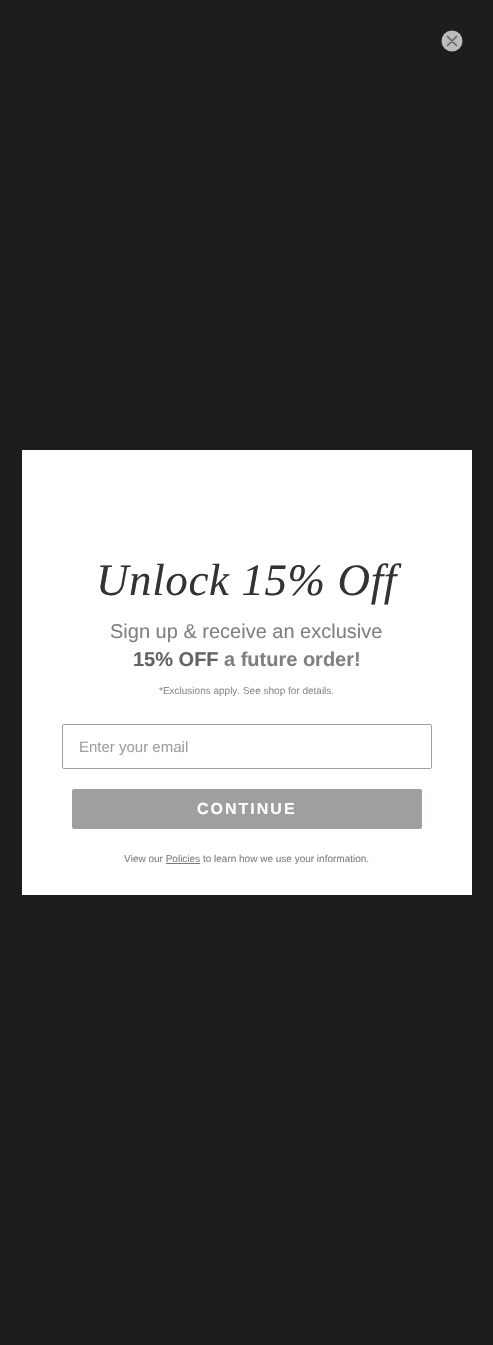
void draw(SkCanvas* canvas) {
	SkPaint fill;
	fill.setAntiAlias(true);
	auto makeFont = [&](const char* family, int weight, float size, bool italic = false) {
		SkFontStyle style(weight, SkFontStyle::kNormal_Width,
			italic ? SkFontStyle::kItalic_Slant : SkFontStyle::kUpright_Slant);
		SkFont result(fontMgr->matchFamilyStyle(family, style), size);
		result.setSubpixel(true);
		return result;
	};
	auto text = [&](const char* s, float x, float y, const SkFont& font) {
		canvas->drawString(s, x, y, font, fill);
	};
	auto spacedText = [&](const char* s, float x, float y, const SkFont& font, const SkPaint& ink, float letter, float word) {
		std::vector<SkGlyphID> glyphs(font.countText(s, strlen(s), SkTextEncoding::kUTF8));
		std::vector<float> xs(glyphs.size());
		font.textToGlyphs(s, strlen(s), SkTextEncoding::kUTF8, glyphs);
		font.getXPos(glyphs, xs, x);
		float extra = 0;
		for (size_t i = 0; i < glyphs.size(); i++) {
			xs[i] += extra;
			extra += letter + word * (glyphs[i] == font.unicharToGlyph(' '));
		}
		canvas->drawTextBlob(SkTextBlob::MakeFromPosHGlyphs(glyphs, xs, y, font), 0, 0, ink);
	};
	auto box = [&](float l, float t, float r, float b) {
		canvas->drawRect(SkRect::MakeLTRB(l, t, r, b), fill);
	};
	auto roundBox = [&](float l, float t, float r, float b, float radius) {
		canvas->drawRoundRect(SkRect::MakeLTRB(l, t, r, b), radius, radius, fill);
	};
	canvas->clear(0xFF1D1D1D);
	fill.setColor(0xFFBBBBBB);
	canvas->drawCircle(452, 41, 10.5f, fill);
	fill.setStyle(SkPaint::kStroke_Style);
	fill.setStrokeWidth(1.7f);
	fill.setStrokeCap(SkPaint::kRound_Cap);
	fill.setStrokeJoin(SkPaint::kRound_Join);
	fill.setColor(0xFF666666);
	canvas->drawPath(SkPathBuilder().moveTo(447.5f, 36.5f).lineTo(456.5f, 45.5f).moveTo(447.5f, 45.5f).lineTo(456.5f, 36.5f).close().detach(), fill);
	fill.setStyle(SkPaint::kFill_Style);
	fill.setColor(0xFFFFFFFF);
	box(22, 450, 472, 895);
	fill.setStyle(SkPaint::kStroke_Style);
	fill.setStrokeWidth(1);
	fill.setStrokeCap(SkPaint::kButt_Cap);
	fill.setStrokeJoin(SkPaint::kMiter_Join);
	fill.setColor(0xFFA09E9E);
	canvas->drawRoundRect(SkRect::MakeLTRB(62.5f, 724.5f, 431.5f, 768.5f), 1.5f, 1.5f, fill);
	fill.setStyle(SkPaint::kFill_Style);
	roundBox(72, 789, 422, 829, 2);
	auto font1 = makeFont("Liberation Serif", 400, 45, true);
	fill.setColor(0xFF333333);
	spacedText("Unlock 15% Off", 96, 595, font1, fill, 0.6f, 0);
	auto font2 = makeFont("Liberation Sans", 400, 20);
	fill.setColor(0xFF808080);
	text("Sign up & receive an exclusive", 110, 638, font2);
	auto font3 = makeFont("Liberation Sans", 700, 20);
	fill.setColor(0xFF66625E);
	text("15% OFF", 133, 666, font3);
	fill.setColor(0xFF808080);
	text("a future order!", 224, 666, font3);
	auto font4 = makeFont("Liberation Sans", 400, 10);
	fill.setColor(0xFF8C8C8C);
	text("*Exclusions apply. See shop for details.", 159, 694, font4);
	auto font5 = makeFont("Liberation Sans", 400, 15);
	fill.setColor(0xFF9E9E9E);
	text("Enter your email", 79, 752, font5);
	auto font6 = makeFont("Liberation Sans", 700, 16);
	fill.setColor(0xFFFFFFFF);
	spacedText("CONTINUE", 197, 814, font6, fill, 2, 0);
	fill.setColor(0xFF808080);
	text("View our Policies to learn how we use your information.", 124, 862, font4);
	fill.setColor(0xFF7B7B7B);
	box(166, 863, 200, 864);
}
